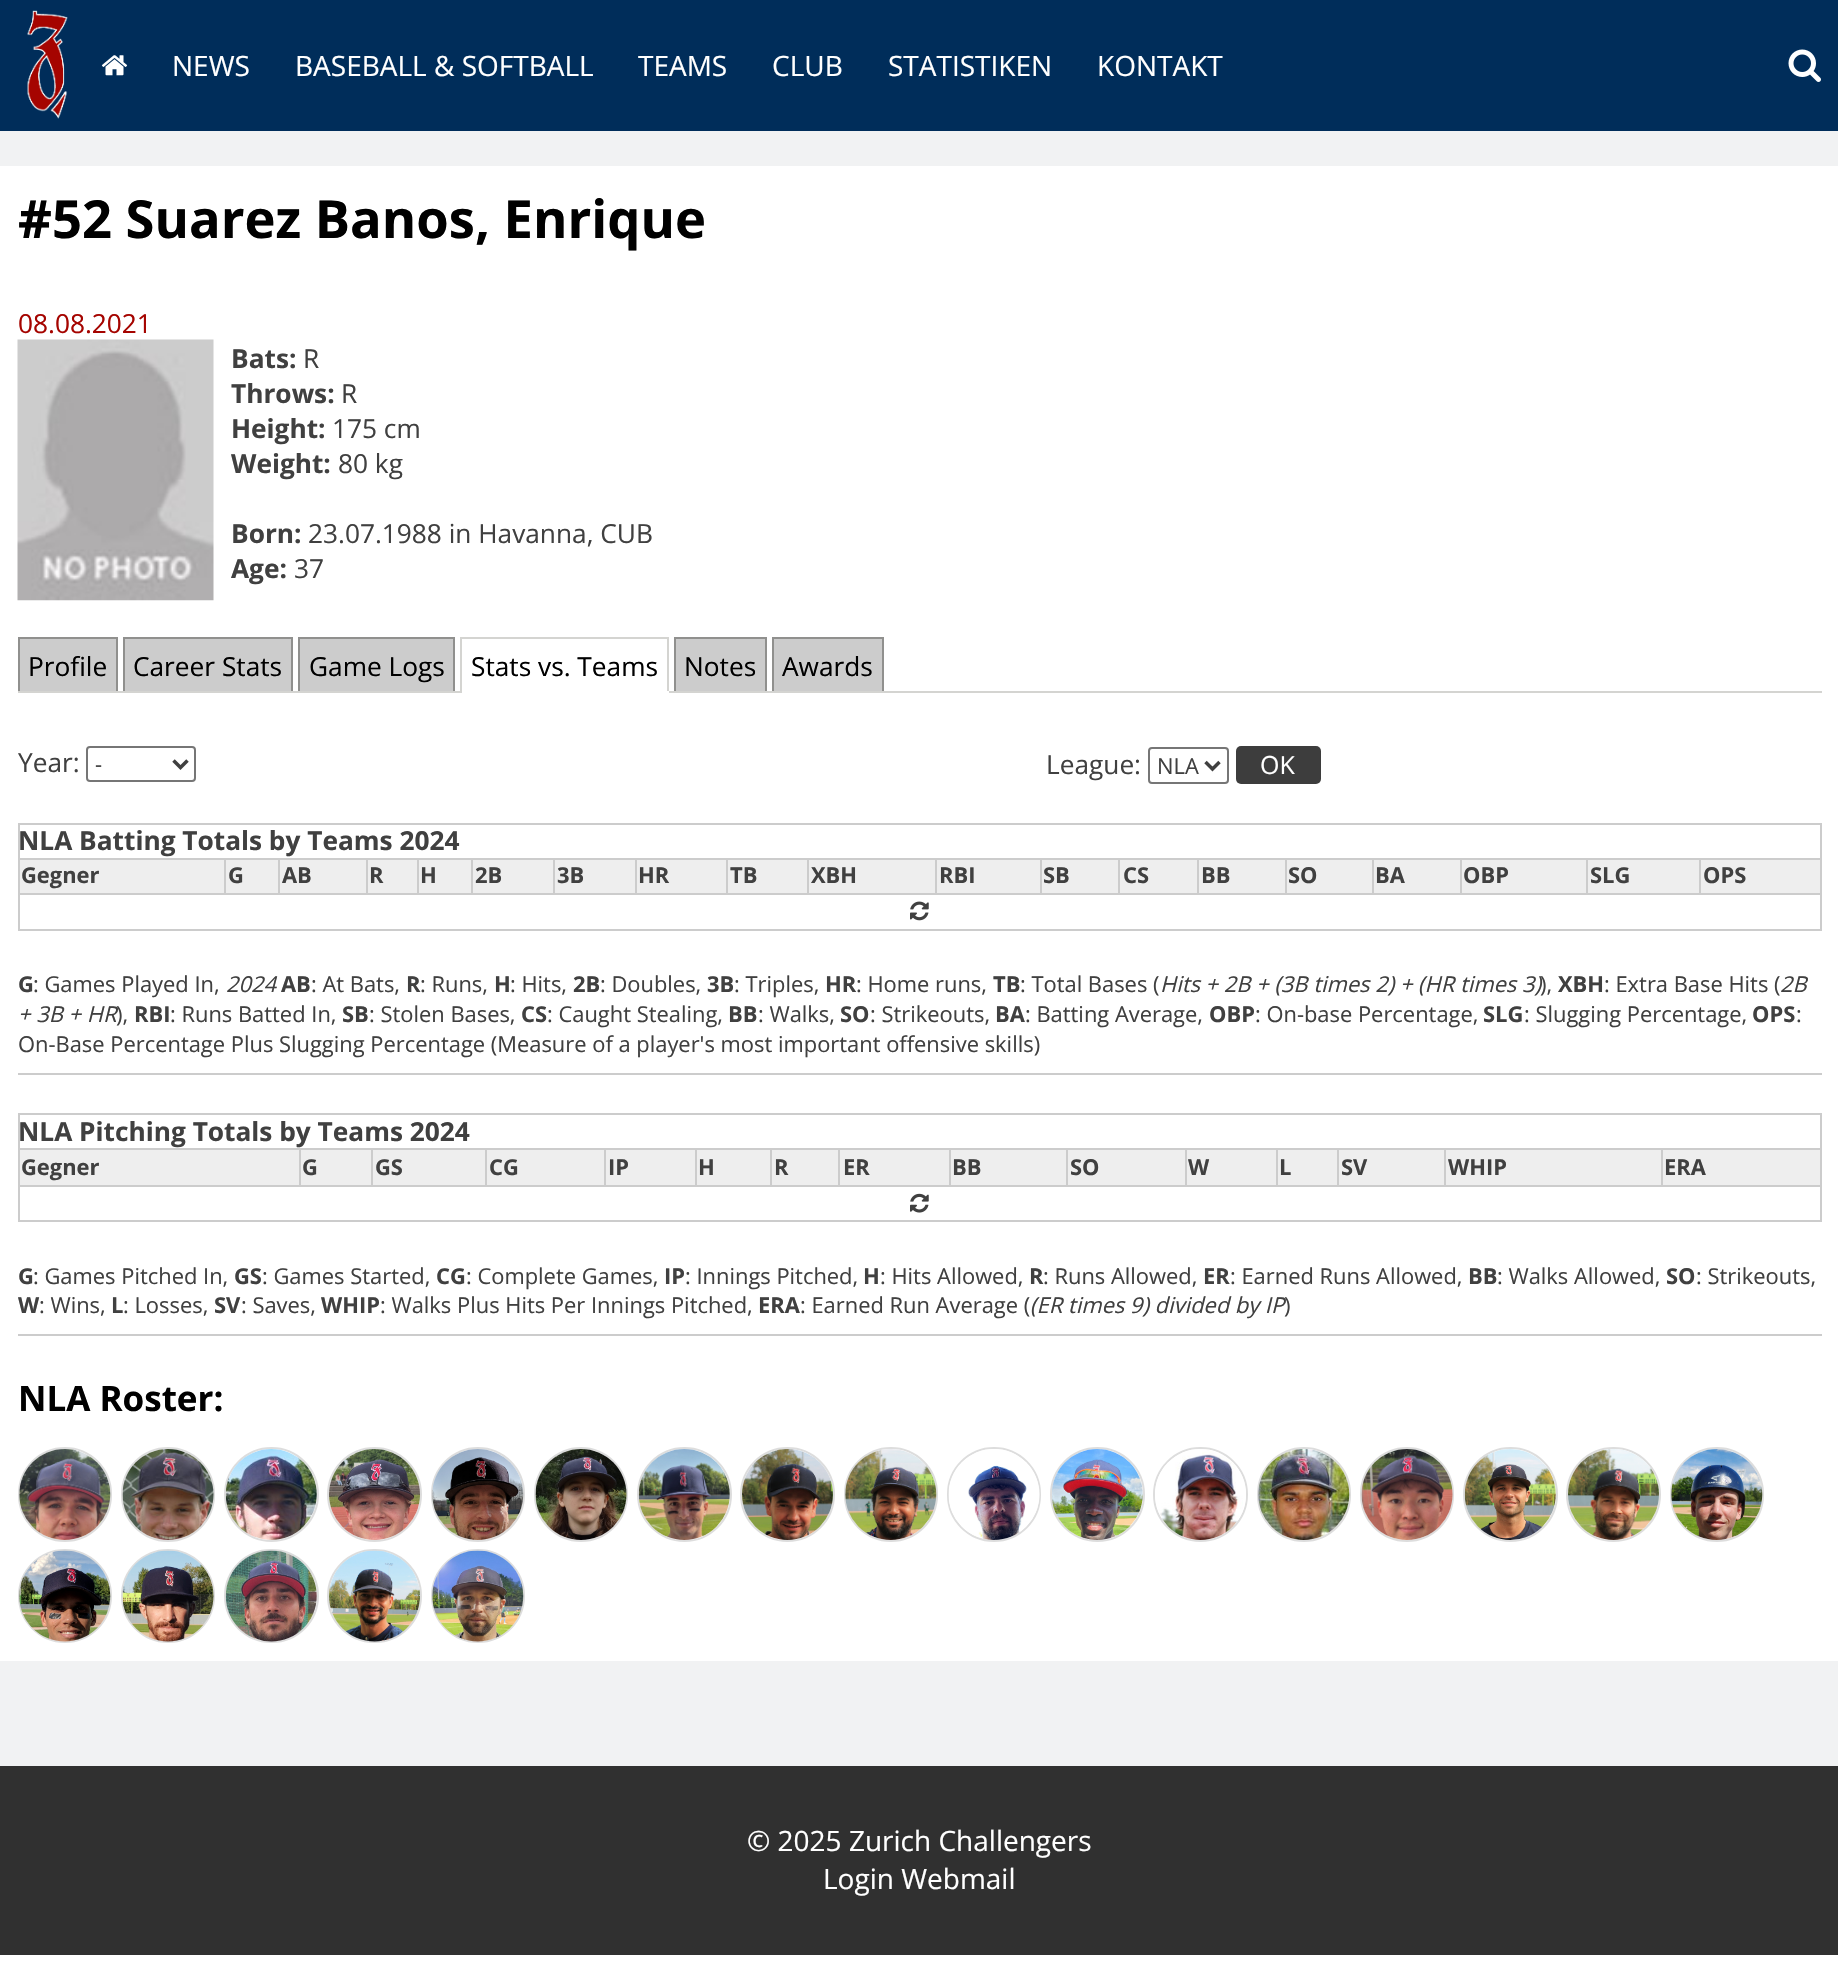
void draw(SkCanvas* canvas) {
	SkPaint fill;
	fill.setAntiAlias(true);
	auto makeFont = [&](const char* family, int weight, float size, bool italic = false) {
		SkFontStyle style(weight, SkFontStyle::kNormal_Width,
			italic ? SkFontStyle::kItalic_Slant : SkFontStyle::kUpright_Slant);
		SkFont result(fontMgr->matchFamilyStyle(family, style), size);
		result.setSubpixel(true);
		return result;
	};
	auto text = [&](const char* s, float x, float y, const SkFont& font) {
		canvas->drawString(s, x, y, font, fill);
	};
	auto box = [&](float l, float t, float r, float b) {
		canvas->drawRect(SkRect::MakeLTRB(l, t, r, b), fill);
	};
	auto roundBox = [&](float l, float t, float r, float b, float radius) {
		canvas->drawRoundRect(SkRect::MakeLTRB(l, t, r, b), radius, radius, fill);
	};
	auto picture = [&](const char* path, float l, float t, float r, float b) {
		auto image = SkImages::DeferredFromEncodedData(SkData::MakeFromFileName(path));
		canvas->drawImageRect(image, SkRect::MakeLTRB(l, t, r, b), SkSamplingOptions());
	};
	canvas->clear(0xFFFFFFFF);
	fill.setColor(0xFFF1F2F3);
	box(0, 131, 1838, 1766);
	fill.setColor(0xFF002D5A);
	box(0, 0, 1838, 131);
	picture("image0.png", 27, 10, 68, 119);
	picture("image1.png", 101, 55, 128, 76);
	picture("image2.png", 1788, 49, 1821, 82);
	fill.setColor(0xFFFFFFFF);
	box(0, 166, 1838, 1661);
	picture("image3.png", 17, 339, 214, 601);
	fill.setColor(0xFFD4D4D1);
	box(18, 691, 1822, 693);
	fill.setColor(0xFFCCCCCC);
	box(20, 639, 116, 691);
	fill.setColor(0xFF90908E);
	box(18, 637, 117, 639);
	box(116, 637, 118, 691);
	box(18, 637, 20, 691);
	fill.setColor(0xFFCCCCCC);
	box(125, 639, 291, 691);
	fill.setColor(0xFF90908E);
	box(123, 637, 292, 639);
	box(291, 637, 293, 691);
	box(123, 637, 125, 691);
	fill.setColor(0xFFCCCCCC);
	box(300, 639, 453, 691);
	fill.setColor(0xFF90908E);
	box(298, 637, 455, 639);
	box(453, 637, 455, 691);
	box(298, 637, 300, 691);
	fill.setColor(0xFFD4D4D1);
	box(460, 637, 669, 639);
	box(667, 637, 669, 693);
	fill.setColor(0xFFFFFFFF);
	box(460, 691, 669, 693);
	fill.setColor(0xFFD4D4D1);
	box(460, 637, 462, 693);
	fill.setColor(0xFFCCCCCC);
	box(676, 639, 765, 691);
	fill.setColor(0xFF90908E);
	box(674, 637, 767, 639);
	box(765, 637, 767, 691);
	box(674, 637, 676, 691);
	fill.setColor(0xFFCCCCCC);
	box(774, 639, 882, 691);
	fill.setColor(0xFF90908E);
	box(772, 637, 884, 639);
	box(882, 637, 884, 691);
	box(772, 637, 774, 691);
	fill.setStyle(SkPaint::kStroke_Style);
	fill.setStrokeWidth(2);
	fill.setColor(0xFF767676);
	canvas->drawRoundRect(SkRect::MakeLTRB(87, 747, 195, 781), 3, 3, fill);
	fill.setStrokeWidth(3.5f);
	fill.setColor(0xFF404040);
	canvas->drawPath(SkPathBuilder().moveTo(173.5f, 760.5f).lineTo(180.5f, 767.5f).lineTo(187.5f, 760.5f).detach(), fill);
	fill.setStrokeWidth(2);
	fill.setColor(0xFF767676);
	canvas->drawRoundRect(SkRect::MakeLTRB(1149, 748, 1228, 783), 3, 3, fill);
	fill.setStrokeWidth(3.5f);
	fill.setColor(0xFF404040);
	canvas->drawPath(SkPathBuilder().moveTo(1205.5f, 762).lineTo(1212.5f, 769).lineTo(1219.5f, 762).detach(), fill);
	fill.setStyle(SkPaint::kFill_Style);
	fill.setColor(0xFF3D3D3D);
	roundBox(1236, 746, 1321, 784, 5);
	fill.setColor(0xFFCCCCCC);
	box(18, 823, 1822, 825);
	box(1820, 823, 1822, 931);
	box(18, 929, 1822, 931);
	box(18, 823, 20, 931);
	fill.setColor(0xFFEEEEEE);
	box(20, 860, 224, 893);
	fill.setColor(0xFFCCCCCC);
	box(1699, 858, 1822, 860);
	box(18, 893, 1822, 895);
	box(1699, 858, 1701, 894);
	box(1586, 858, 1701, 860);
	box(1586, 858, 1588, 894);
	box(1460, 858, 1587, 860);
	box(1460, 858, 1462, 894);
	box(1372, 858, 1461, 860);
	box(1372, 858, 1374, 894);
	box(1285, 858, 1374, 860);
	box(1285, 858, 1287, 894);
	box(1197, 858, 1286, 860);
	box(1197, 858, 1199, 894);
	box(1118, 858, 1199, 860);
	box(1118, 858, 1120, 894);
	box(1040, 858, 1120, 860);
	box(1040, 858, 1042, 894);
	box(935, 858, 1041, 860);
	box(935, 858, 937, 894);
	box(807, 858, 936, 860);
	box(807, 858, 809, 894);
	box(726, 858, 809, 860);
	box(726, 858, 728, 894);
	box(635, 858, 728, 860);
	box(635, 858, 637, 894);
	box(553, 858, 637, 860);
	box(553, 858, 555, 894);
	box(471, 858, 555, 860);
	box(471, 858, 473, 894);
	box(417, 858, 473, 860);
	box(417, 858, 419, 894);
	box(366, 858, 418, 860);
	box(366, 858, 368, 894);
	box(278, 858, 368, 860);
	box(278, 858, 280, 894);
	box(224, 858, 280, 860);
	box(224, 858, 226, 894);
	box(18, 858, 226, 860);
	fill.setColor(0xFFEEEEEE);
	box(226, 860, 278, 893);
	box(280, 860, 366, 893);
	box(368, 860, 417, 893);
	box(419, 860, 471, 893);
	box(473, 860, 553, 893);
	box(555, 860, 635, 893);
	box(637, 860, 726, 893);
	box(728, 860, 807, 893);
	box(809, 860, 935, 893);
	box(937, 860, 1040, 893);
	box(1042, 860, 1118, 893);
	box(1120, 860, 1197, 893);
	box(1199, 860, 1285, 893);
	box(1287, 860, 1372, 893);
	box(1374, 860, 1460, 893);
	box(1462, 860, 1586, 893);
	box(1588, 860, 1699, 893);
	box(1701, 860, 1820, 893);
	picture("image4.png", 910, 901, 929, 921);
	fill.setColor(0xFFCCCCCC);
	box(18, 1073, 1822, 1075);
	box(18, 1113, 1822, 1115);
	box(1820, 1113, 1822, 1222);
	box(18, 1220, 1822, 1222);
	box(18, 1113, 20, 1222);
	fill.setColor(0xFFEEEEEE);
	box(20, 1150, 299, 1185);
	fill.setColor(0xFFCCCCCC);
	box(1661, 1148, 1822, 1150);
	box(18, 1185, 1822, 1187);
	box(1661, 1148, 1663, 1187);
	box(1444, 1148, 1663, 1150);
	box(1444, 1148, 1446, 1187);
	box(1337, 1148, 1446, 1150);
	box(1337, 1148, 1339, 1187);
	box(1276, 1148, 1339, 1150);
	box(1276, 1148, 1278, 1187);
	box(1185, 1148, 1278, 1150);
	box(1185, 1148, 1187, 1187);
	box(1066, 1148, 1187, 1150);
	box(1066, 1148, 1068, 1187);
	box(949, 1148, 1068, 1150);
	box(949, 1148, 951, 1187);
	box(838, 1148, 950, 1150);
	box(838, 1148, 840, 1187);
	box(770, 1148, 840, 1150);
	box(770, 1148, 772, 1187);
	box(695, 1148, 772, 1150);
	box(695, 1148, 697, 1187);
	box(604, 1148, 697, 1150);
	box(604, 1148, 606, 1187);
	box(485, 1148, 606, 1150);
	box(485, 1148, 487, 1187);
	box(371, 1148, 487, 1150);
	box(371, 1148, 373, 1187);
	box(299, 1148, 373, 1150);
	box(299, 1148, 301, 1187);
	box(18, 1148, 301, 1150);
	fill.setColor(0xFFEEEEEE);
	box(301, 1150, 371, 1185);
	box(373, 1150, 485, 1185);
	box(487, 1150, 604, 1185);
	box(606, 1150, 695, 1185);
	box(697, 1150, 770, 1185);
	box(772, 1150, 838, 1185);
	box(840, 1150, 949, 1185);
	box(951, 1150, 1066, 1185);
	box(1068, 1150, 1185, 1185);
	box(1187, 1150, 1276, 1185);
	box(1278, 1150, 1337, 1185);
	box(1339, 1150, 1444, 1185);
	box(1446, 1150, 1661, 1185);
	box(1663, 1150, 1820, 1185);
	picture("image5.png", 910, 1193, 929, 1213);
	fill.setColor(0xFFCCCCCC);
	box(18, 1334, 1822, 1336);
	fill.setStyle(SkPaint::kStroke_Style);
	fill.setStrokeWidth(2);
	fill.setColor(0xFFDDDDDD);
	canvas->drawRoundRect(SkRect::MakeLTRB(19, 1448, 111, 1541), 46, 46, fill);
	picture("image6.png", 19, 1449, 111, 1540);
	canvas->drawRoundRect(SkRect::MakeLTRB(122, 1448, 214, 1541), 46, 46, fill);
	picture("image7.png", 122, 1449, 214, 1540);
	canvas->drawCircle(271.5f, 1494.5f, 46.5f, fill);
	picture("image8.png", 225, 1449, 317, 1540);
	canvas->drawCircle(374.5f, 1494.5f, 46.5f, fill);
	picture("image9.png", 329, 1449, 420, 1540);
	canvas->drawRoundRect(SkRect::MakeLTRB(432, 1448, 524, 1541), 46, 46, fill);
	picture("image10.png", 432, 1449, 524, 1540);
	canvas->drawRoundRect(SkRect::MakeLTRB(535, 1448, 627, 1541), 46, 46, fill);
	picture("image11.png", 535, 1449, 627, 1540);
	canvas->drawCircle(684.5f, 1494.5f, 46.5f, fill);
	picture("image12.png", 638, 1449, 730, 1540);
	canvas->drawCircle(787.5f, 1494.5f, 46.5f, fill);
	picture("image13.png", 742, 1449, 833, 1540);
	canvas->drawRoundRect(SkRect::MakeLTRB(845, 1448, 937, 1541), 46, 46, fill);
	picture("image14.png", 845, 1449, 937, 1540);
	canvas->drawRoundRect(SkRect::MakeLTRB(948, 1448, 1040, 1541), 46, 46, fill);
	picture("image15.png", 948, 1449, 1040, 1540);
	canvas->drawCircle(1097.5f, 1494.5f, 46.5f, fill);
	picture("image16.png", 1052, 1449, 1143, 1540);
	canvas->drawCircle(1200.5f, 1494.5f, 46.5f, fill);
	picture("image17.png", 1155, 1449, 1246, 1540);
	canvas->drawRoundRect(SkRect::MakeLTRB(1258, 1448, 1350, 1541), 46, 46, fill);
	picture("image18.png", 1258, 1449, 1350, 1540);
	canvas->drawRoundRect(SkRect::MakeLTRB(1361, 1448, 1453, 1541), 46, 46, fill);
	picture("image19.png", 1361, 1449, 1453, 1540);
	canvas->drawCircle(1510.5f, 1494.5f, 46.5f, fill);
	picture("image20.png", 1464, 1449, 1556, 1540);
	canvas->drawCircle(1613.5f, 1494.5f, 46.5f, fill);
	picture("image21.png", 1568, 1449, 1659, 1540);
	canvas->drawRoundRect(SkRect::MakeLTRB(1671, 1448, 1763, 1541), 46, 46, fill);
	picture("image22.png", 1671, 1449, 1763, 1540);
	canvas->drawCircle(65, 1596, 46, fill);
	picture("image23.png", 19, 1550, 111, 1642);
	canvas->drawCircle(168, 1596, 46, fill);
	picture("image24.png", 122, 1550, 214, 1642);
	canvas->drawRoundRect(SkRect::MakeLTRB(225, 1550, 318, 1642), 46, 46, fill);
	picture("image25.png", 225, 1550, 317, 1642);
	canvas->drawRoundRect(SkRect::MakeLTRB(328, 1550, 421, 1642), 46, 46, fill);
	picture("image26.png", 329, 1550, 420, 1642);
	canvas->drawCircle(478, 1596, 46, fill);
	picture("image27.png", 432, 1550, 524, 1642);
	fill.setStyle(SkPaint::kFill_Style);
	fill.setColor(0xFF303030);
	box(0, 1766, 1838, 1955);
	auto font1 = makeFont("Open Sans", 400, 28);
	fill.setColor(0xFFFFFFFF);
	text("NEWS", 172, 76, font1);
	text("BASEBALL & SOFTBALL", 295, 76, font1);
	text("TEAMS", 638, 76, font1);
	text("CLUB", 772, 76, font1);
	text("STATISTIKEN", 888, 76, font1);
	text("KONTAKT", 1097, 76, font1);
	auto font2 = makeFont("Open Sans", 700, 52.5f);
	fill.setColor(0xFF000000);
	text("#52 Suarez Banos, Enrique", 18, 238, font2);
	auto font3 = makeFont("Open Sans", 400, 26.25f);
	fill.setColor(0xFFA50400);
	text("08.08.2021", 18, 333, font3);
	auto font4 = makeFont("Open Sans", 700, 26.25f);
	fill.setColor(0xFF404040);
	text("Bats:", 231, 368, font4);
	text("R", 303, 368, font3);
	text("Throws:", 231, 403, font4);
	text("R", 341, 403, font3);
	text("Height:", 231, 438, font4);
	text("175 cm", 332, 438, font3);
	text("Weight:", 231, 473, font4);
	text("80 kg", 338, 473, font3);
	text("Born:", 231, 543, font4);
	text("23.07.1988 in Havanna, CUB", 308, 543, font3);
	text("Age:", 231, 578, font4);
	text("37", 294, 578, font3);
	fill.setColor(0xFF000000);
	text("Profile", 28, 676, font3);
	text("Career Stats", 133, 676, font3);
	text("Game Logs", 309, 676, font3);
	text("Stats vs. Teams", 471, 676, font3);
	text("Notes", 684, 676, font3);
	text("Awards", 782, 676, font3);
	fill.setColor(0xFF404040);
	text("Year:", 18, 772, font3);
	auto font5 = makeFont("Open Sans", 400, 21.9f);
	text("-", 95, 772, font5);
	text("League:", 1046, 774, font3);
	text("NLA", 1157, 774, font5);
	auto font6 = makeFont("Open Sans", 400, 25);
	fill.setColor(0xFFFFFFFF);
	text("OK", 1260, 774, font6);
	fill.setColor(0xFF404040);
	text("NLA Batting Totals by Teams 2024", 18, 850, font4);
	auto font7 = makeFont("Open Sans", 700, 21.9f);
	text("Gegner", 21, 883, font7);
	text("G", 228, 883, font7);
	text("AB", 282, 883, font7);
	text("R", 369, 883, font7);
	text("H", 420, 883, font7);
	text("2B", 475, 883, font7);
	text("3B", 557, 883, font7);
	text("HR", 638, 883, font7);
	text("TB", 730, 883, font7);
	text("XBH", 811, 883, font7);
	text("RBI", 939, 883, font7);
	text("SB", 1043, 883, font7);
	text("CS", 1123, 883, font7);
	text("BB", 1201, 883, font7);
	text("SO", 1288, 883, font7);
	text("BA", 1375, 883, font7);
	text("OBP", 1463, 883, font7);
	text("SLG", 1590, 883, font7);
	text("OPS", 1703, 883, font7);
	text("G", 18, 992, font7);
	text(": Games Played In,", 33, 992, font5);
	auto font8 = makeFont("Open Sans", 400, 21.9f, true);
	text("2024", 226, 992, font8);
	text("AB", 281, 992, font7);
	text(": At Bats,", 311, 992, font5);
	text("R", 406, 992, font7);
	text(": Runs,", 420, 992, font5);
	text("H", 494, 992, font7);
	text(": Hits,", 510, 992, font5);
	text("2B", 573, 992, font7);
	text(": Doubles,", 600, 992, font5);
	text("3B", 707, 992, font7);
	text(": Triples,", 734, 992, font5);
	text("HR", 825, 992, font7);
	text(": Home runs,", 856, 992, font5);
	text("TB", 993, 992, font7);
	text(": Total Bases (", 1020, 992, font5);
	text("Hits + 2B + (3B times 2) + (HR times 3)", 1160, 992, font8);
	text("),", 1540, 992, font5);
	text("XBH", 1558, 992, font7);
	text(": Extra Base Hits (", 1604, 992, font5);
	text("2B", 1780, 992, font8);
	text("+ 3B + HR", 18, 1022, font8);
	text("),", 116, 1022, font5);
	text("RBI", 134, 1022, font7);
	text(": Runs Batted In,", 170, 1022, font5);
	text("SB", 342, 1022, font7);
	text(": Stolen Bases,", 369, 1022, font5);
	text("CS", 521, 1022, font7);
	text(": Caught Stealing,", 547, 1022, font5);
	text("BB", 728, 1022, font7);
	text(": Walks,", 758, 1022, font5);
	text("SO", 840, 1022, font7);
	text(": Strikeouts,", 870, 1022, font5);
	text("BA", 995, 1022, font7);
	text(": Batting Average,", 1025, 1022, font5);
	text("OBP", 1209, 1022, font7);
	text(": On-base Percentage,", 1255, 1022, font5);
	text("SLG", 1483, 1022, font7);
	text(": Slugging Percentage,", 1524, 1022, font5);
	text("OPS", 1752, 1022, font7);
	text(":", 1796, 1022, font5);
	text("On-Base Percentage Plus Slugging Percentage (Measure of a player's most important offensive skills)", 18, 1052, font5);
	text("NLA Pitching Totals by Teams 2024", 18, 1141, font4);
	text("Gegner", 21, 1175, font7);
	text("G", 302, 1175, font7);
	text("GS", 375, 1175, font7);
	text("CG", 489, 1175, font7);
	text("IP", 608, 1175, font7);
	text("H", 698, 1175, font7);
	text("R", 774, 1175, font7);
	text("ER", 843, 1175, font7);
	text("BB", 952, 1175, font7);
	text("SO", 1070, 1175, font7);
	text("W", 1188, 1175, font7);
	text("L", 1279, 1175, font7);
	text("SV", 1341, 1175, font7);
	text("WHIP", 1448, 1175, font7);
	text("ERA", 1664, 1175, font7);
	text("G", 18, 1284, font7);
	text(": Games Pitched In,", 33, 1284, font5);
	text("GS", 234, 1284, font7);
	text(": Games Started,", 262, 1284, font5);
	text("CG", 436, 1284, font7);
	text(": Complete Games,", 466, 1284, font5);
	text("IP", 664, 1284, font7);
	text(": Innings Pitched,", 685, 1284, font5);
	text("H", 863, 1284, font7);
	text(": Hits Allowed,", 880, 1284, font5);
	text("R", 1029, 1284, font7);
	text(": Runs Allowed,", 1043, 1284, font5);
	text("ER", 1203, 1284, font7);
	text(": Earned Runs Allowed,", 1230, 1284, font5);
	text("BB", 1468, 1284, font7);
	text(": Walks Allowed,", 1497, 1284, font5);
	text("SO", 1666, 1284, font7);
	text(": Strikeouts,", 1696, 1284, font5);
	text("W", 18, 1313, font7);
	text(": Wins,", 39, 1313, font5);
	text("L", 111, 1313, font7);
	text(": Losses,", 123, 1313, font5);
	text("SV", 214, 1313, font7);
	text(": Saves,", 241, 1313, font5);
	text("WHIP", 321, 1313, font7);
	text(": Walks Plus Hits Per Innings Pitched,", 380, 1313, font5);
	text("ERA", 758, 1313, font7);
	text(": Earned Run Average (", 800, 1313, font5);
	text("(ER times 9) divided by IP", 1030, 1313, font8);
	text(")", 1284, 1313, font5);
	auto font9 = makeFont("Open Sans", 700, 35);
	fill.setColor(0xFF000000);
	text("NLA Roster:", 18, 1411, font9);
	fill.setColor(0xFFFFFFFF);
	text("© 2025 Zurich Challengers", 747, 1851, font1);
	text("Login Webmail", 823, 1889, font1);
}
